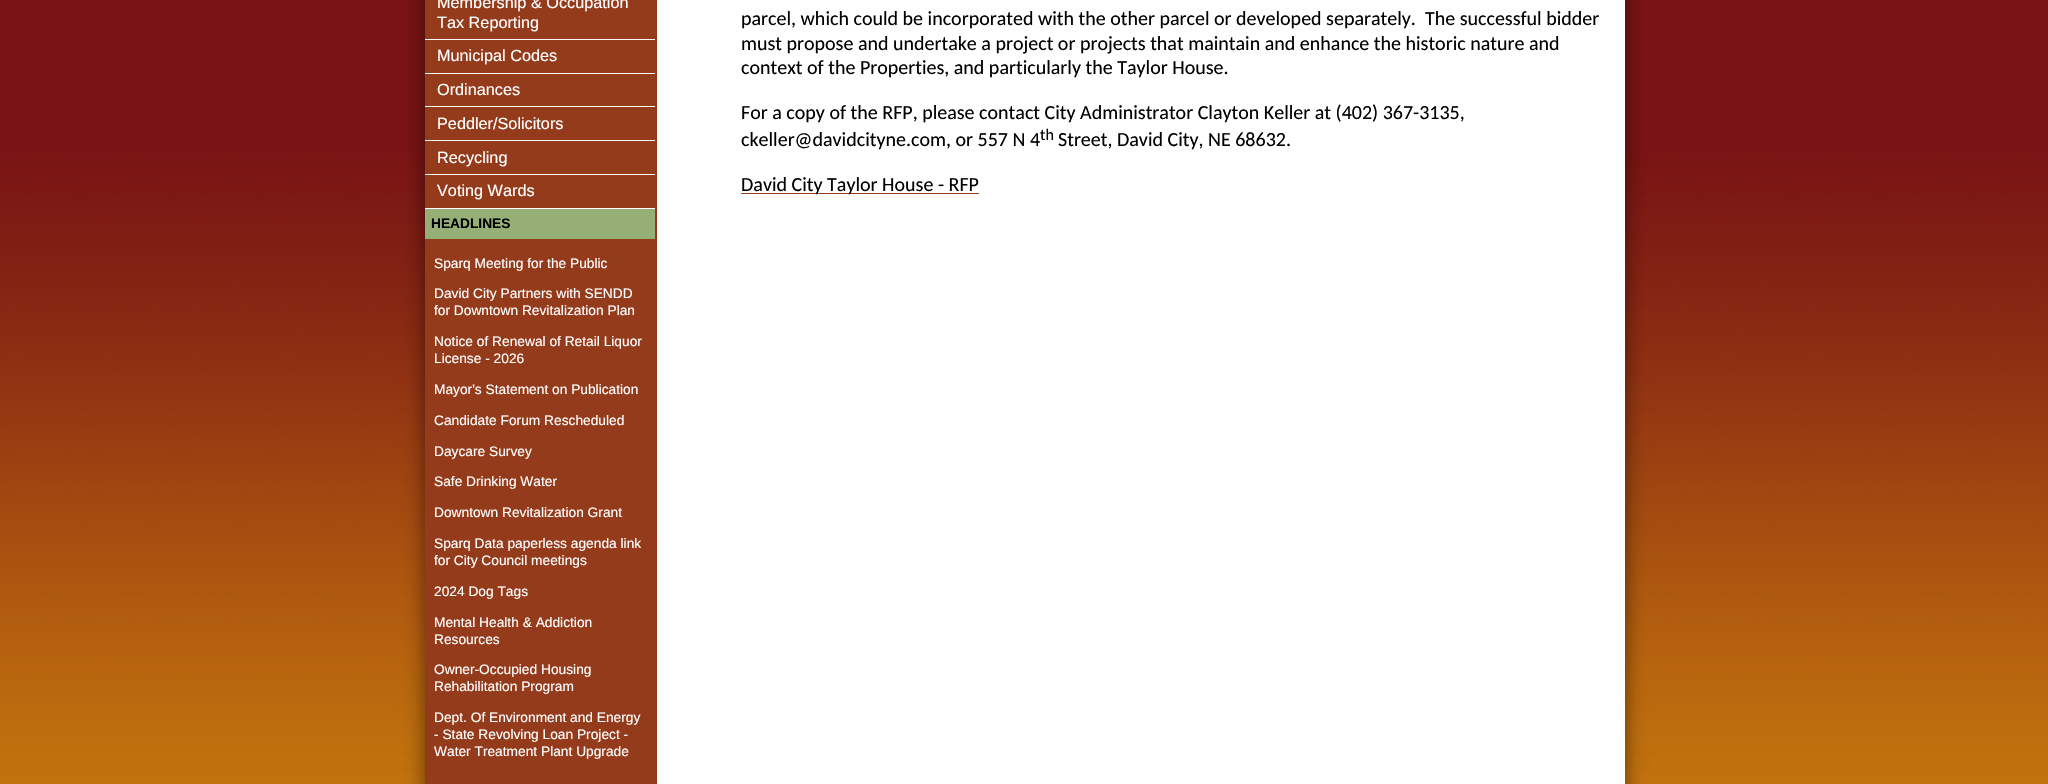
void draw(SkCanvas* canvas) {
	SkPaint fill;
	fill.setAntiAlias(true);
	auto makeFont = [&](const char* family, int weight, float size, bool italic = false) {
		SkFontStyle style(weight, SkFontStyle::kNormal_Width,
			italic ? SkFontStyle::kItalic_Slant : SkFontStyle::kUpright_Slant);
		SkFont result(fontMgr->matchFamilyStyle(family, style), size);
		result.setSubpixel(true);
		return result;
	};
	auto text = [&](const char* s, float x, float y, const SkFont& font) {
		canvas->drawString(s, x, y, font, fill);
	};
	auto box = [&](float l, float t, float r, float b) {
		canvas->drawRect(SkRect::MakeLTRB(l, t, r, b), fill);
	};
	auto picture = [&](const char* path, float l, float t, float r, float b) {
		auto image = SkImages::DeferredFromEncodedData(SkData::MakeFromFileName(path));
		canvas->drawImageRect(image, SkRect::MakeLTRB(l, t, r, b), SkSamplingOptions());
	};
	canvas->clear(0xFFFFFFFF);
	picture("image0.png", 0, 0, 2048, 784);
	fill.setColor(0x80000000);
	fill.setMaskFilter(SkMaskFilter::MakeBlur(kNormal_SkBlurStyle, 9.5f));
	canvas->drawRect(SkRect::MakeLTRB(425, -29, 1625, 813), fill);
	fill.setMaskFilter(nullptr);
	fill.setColor(0xFFFFFFFF);
	box(657, 0, 1625, 784);
	fill.setColor(0xFF943B1B);
	box(425, 0, 657, 784);
	fill.setColor(0xFFFFFFFF);
	box(425, 39, 655, 40);
	box(425, 73, 655, 74);
	box(425, 106, 655, 107);
	box(425, 140, 655, 141);
	box(425, 174, 655, 175);
	box(425, 208, 655, 209);
	fill.setColor(0xFF96AF76);
	box(425, 209, 655, 239);
	fill.setColor(0xFF943B1B);
	box(741, 193, 979, 194);
	auto font1 = makeFont("Liberation Sans", 400, 16.25f);
	fill.setColor(0xFFFFFFFF);
	text("Membership & Occupation", 437, 8, font1);
	text("Tax Reporting", 437, 28, font1);
	text("Municipal Codes", 437, 61, font1);
	text("Ordinances", 437, 95, font1);
	text("Peddler/Solicitors", 437, 129, font1);
	text("Recycling", 437, 163, font1);
	text("Voting Wards", 437, 196, font1);
	auto font2 = makeFont("Liberation Sans", 700, 13.75f);
	fill.setColor(0xFF000000);
	text("HEADLINES", 431, 228, font2);
	auto font3 = makeFont("Liberation Sans", 400, 13.75f);
	fill.setColor(0xFFFFFFFF);
	text("Sparq Meeting for the Public", 434, 268, font3);
	text("David City Partners with SENDD", 434, 298, font3);
	text("for Downtown Revitalization Plan", 434, 315, font3);
	text("Notice of Renewal of Retail Liquor", 434, 346, font3);
	text("License - 2026", 434, 363, font3);
	text("Mayor's Statement on Publication", 434, 394, font3);
	text("Candidate Forum Rescheduled", 434, 425, font3);
	text("Daycare Survey", 434, 456, font3);
	text("Safe Drinking Water", 434, 486, font3);
	text("Downtown Revitalization Grant", 434, 517, font3);
	text("Sparq Data paperless agenda link", 434, 548, font3);
	text("for City Council meetings", 434, 565, font3);
	text("2024 Dog Tags", 434, 596, font3);
	text("Mental Health & Addiction", 434, 627, font3);
	text("Resources", 434, 644, font3);
	text("Owner-Occupied Housing", 434, 674, font3);
	text("Rehabilitation Program", 434, 691, font3);
	text("Dept. Of Environment and Energy", 434, 722, font3);
	text("- State Revolving Loan Project -", 434, 739, font3);
	text("Water Treatment Plant Upgrade", 434, 756, font3);
	auto font4 = makeFont("Carlito", 400, 20);
	fill.setColor(0xFF000000);
	text("parcel, which could be incorporated with the other parcel or developed separately.  The successful bidder", 741, 25, font4);
	text("must propose and undertake a project or projects that maintain and enhance the historic nature and", 741, 50, font4);
	text("context of the Properties, and particularly the Taylor House.", 741, 74, font4);
	text("For a copy of the RFP, please contact City Administrator Clayton Keller at (402) 367-3135,", 741, 119, font4);
	text("ckeller@davidcityne.com, or 557 N 4", 741, 146, font4);
	auto font5 = makeFont("Carlito", 400, 16.25f);
	text("th", 1040, 140, font5);
	text("Street, David City, NE 68632.", 1058, 146, font4);
	text("David City Taylor House - RFP", 741, 191, font4);
}
